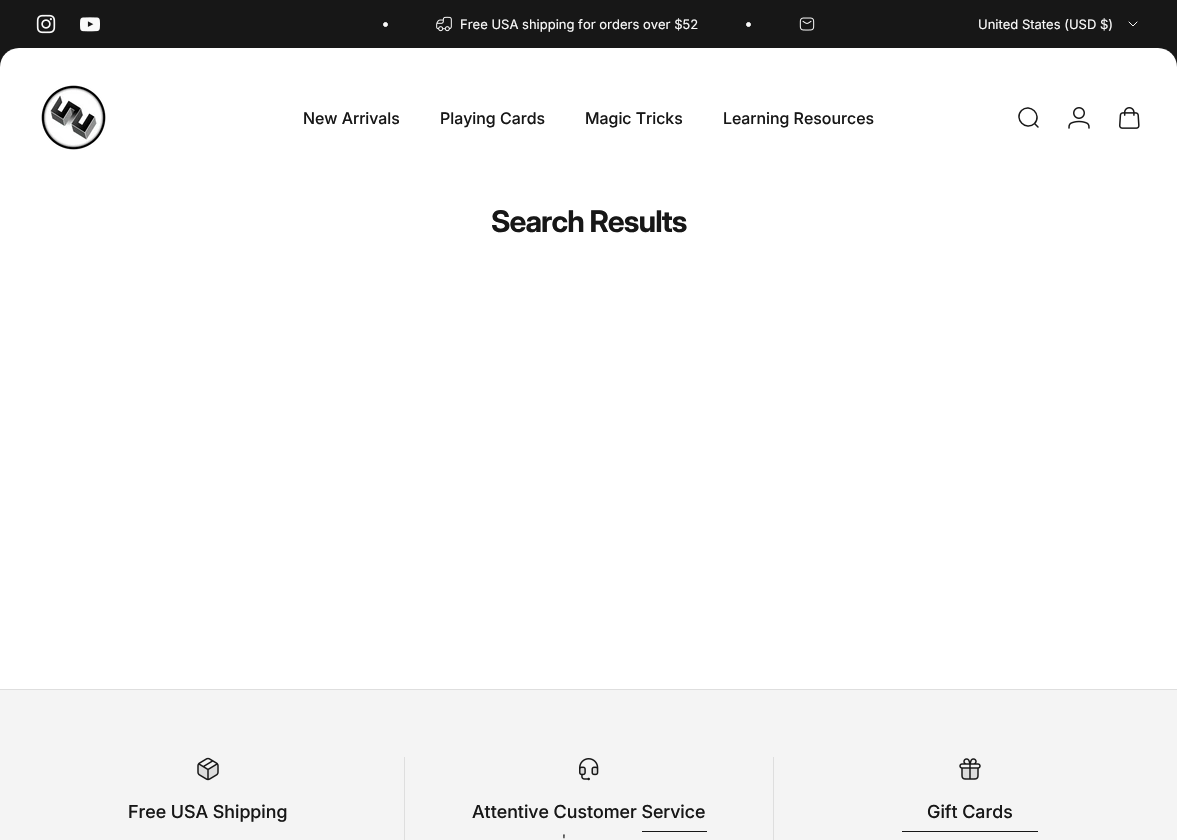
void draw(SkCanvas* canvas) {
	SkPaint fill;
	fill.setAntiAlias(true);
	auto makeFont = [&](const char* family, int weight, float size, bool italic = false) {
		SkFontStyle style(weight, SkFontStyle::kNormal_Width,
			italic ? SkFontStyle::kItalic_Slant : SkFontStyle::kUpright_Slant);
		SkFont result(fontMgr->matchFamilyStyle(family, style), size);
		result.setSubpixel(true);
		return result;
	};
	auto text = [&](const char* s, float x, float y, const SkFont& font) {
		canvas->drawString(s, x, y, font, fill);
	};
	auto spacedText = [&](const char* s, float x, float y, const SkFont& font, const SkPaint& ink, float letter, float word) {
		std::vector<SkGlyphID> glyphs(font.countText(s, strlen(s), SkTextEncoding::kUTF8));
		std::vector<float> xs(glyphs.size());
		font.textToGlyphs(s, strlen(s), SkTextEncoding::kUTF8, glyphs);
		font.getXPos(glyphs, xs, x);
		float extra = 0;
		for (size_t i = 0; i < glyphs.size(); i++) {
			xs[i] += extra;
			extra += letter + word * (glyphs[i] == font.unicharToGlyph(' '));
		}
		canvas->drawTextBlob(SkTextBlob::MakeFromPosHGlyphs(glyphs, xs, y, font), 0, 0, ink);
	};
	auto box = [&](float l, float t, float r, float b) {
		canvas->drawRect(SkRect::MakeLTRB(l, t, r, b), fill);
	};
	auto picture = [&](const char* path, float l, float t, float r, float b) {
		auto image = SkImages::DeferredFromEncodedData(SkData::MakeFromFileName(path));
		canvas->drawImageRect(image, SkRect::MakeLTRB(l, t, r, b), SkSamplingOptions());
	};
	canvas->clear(0xFFFFFFFF);
	fill.setColor(0xFF171717);
	box(0, 0, 1177, 19);
	canvas->drawPath(SkPathBuilder().moveTo(19, 0).lineTo(1158, 0).cubicTo(1168.5f, 0, 1177, 8.5f, 1177, 19).lineTo(1177, 67).lineTo(0, 67).lineTo(0, 19).cubicTo(0, 8.5f, 8.5f, 0, 19, 0).close().detach(), fill);
	picture("image0.png", 36, 14, 56, 34);
	picture("image1.png", 80, 17, 100, 32);
	fill.setColor(0xFFFAFAFA);
	canvas->drawCircle(385.5f, 24.5f, 2, fill);
	fill.setStyle(SkPaint::kStroke_Style);
	fill.setStrokeWidth(1);
	canvas->drawCircle(385.5f, 24.5f, 2, fill);
	picture("image2.png", 436, 16, 452, 32);
	fill.setStyle(SkPaint::kFill_Style);
	canvas->drawCircle(748.5f, 24.5f, 2, fill);
	fill.setStyle(SkPaint::kStroke_Style);
	canvas->drawCircle(748.5f, 24.5f, 2, fill);
	picture("image3.png", 799, 17, 815, 31);
	fill.setStrokeCap(SkPaint::kRound_Cap);
	fill.setStrokeJoin(SkPaint::kRound_Join);
	canvas->drawPath(SkPathBuilder().moveTo(1129, 22).lineTo(1133, 26).lineTo(1137, 22).detach(), fill);
	fill.setStyle(SkPaint::kFill_Style);
	fill.setColor(0xFFFFFFFF);
	canvas->drawPath(SkPathBuilder().moveTo(19, 48).lineTo(1158, 48).cubicTo(1168.5f, 48, 1177, 56.5f, 1177, 67).lineTo(1177, 187).lineTo(0, 187).lineTo(0, 67).cubicTo(0, 56.5f, 8.5f, 48, 19, 48).close().detach(), fill);
	picture("image4.png", 41, 85, 106, 150);
	fill.setStyle(SkPaint::kStroke_Style);
	fill.setStrokeWidth(1.5f);
	fill.setStrokeJoin(SkPaint::kMiter_Join);
	fill.setColor(0xFF171717);
	canvas->drawPath(SkPathBuilder().moveTo(1038, 127).lineTo(1034.5f, 123.5f).moveTo(1034.5f, 123.5f).cubicTo(1042.5f, 115, 1030, 102.5f, 1021.5f, 110.5f).cubicTo(1013.5f, 119, 1026, 131.5f, 1034.5f, 123.5f).close().detach(), fill);
	picture("image5.png", 1068, 107, 1090, 129);
	picture("image6.png", 1119, 107, 1140, 129);
	fill.setStyle(SkPaint::kFill_Style);
	fill.setColor(0xFFF4F4F4);
	box(0, 690, 1177, 840);
	fill.setColor(0xFFDEDEDE);
	box(0, 689, 1177, 690);
	picture("image7.png", 197, 757, 219, 781);
	box(404, 757, 405, 840);
	picture("image8.png", 579, 758, 599, 781);
	fill.setColor(0xFF171717);
	box(642, 831, 707, 832);
	fill.setColor(0xFFDEDEDE);
	box(773, 757, 774, 840);
	picture("image9.png", 959, 758, 981, 780);
	fill.setColor(0xFF171717);
	box(902, 831, 1038, 832);
	auto font1 = makeFont("Inter", 400, 13);
	fill.setColor(0xFFFAFAFA);
	text("Free USA shipping for orders over $52", 460, 29, font1);
	text("United States (USD $)", 978, 29, font1);
	auto font2 = makeFont("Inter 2", 500, 16);
	fill.setColor(0xFF171717);
	text("New Arrivals", 303, 124, font2);
	text("Playing Cards", 440, 124, font2);
	text("Magic Tricks", 585, 124, font2);
	text("Learning Resources", 723, 124, font2);
	auto font3 = makeFont("Inter", 700, 29.75f);
	spacedText("Search Results", 491, 232, font3, fill, -0.9f, 0);
	auto font4 = makeFont("Inter", 500, 18);
	text("Free USA Shipping", 128, 818, font4);
	text("Attentive Customer Service", 472, 818, font4);
	text("'", 562, 844, font1);
	text("Gift Cards", 927, 818, font4);
}
